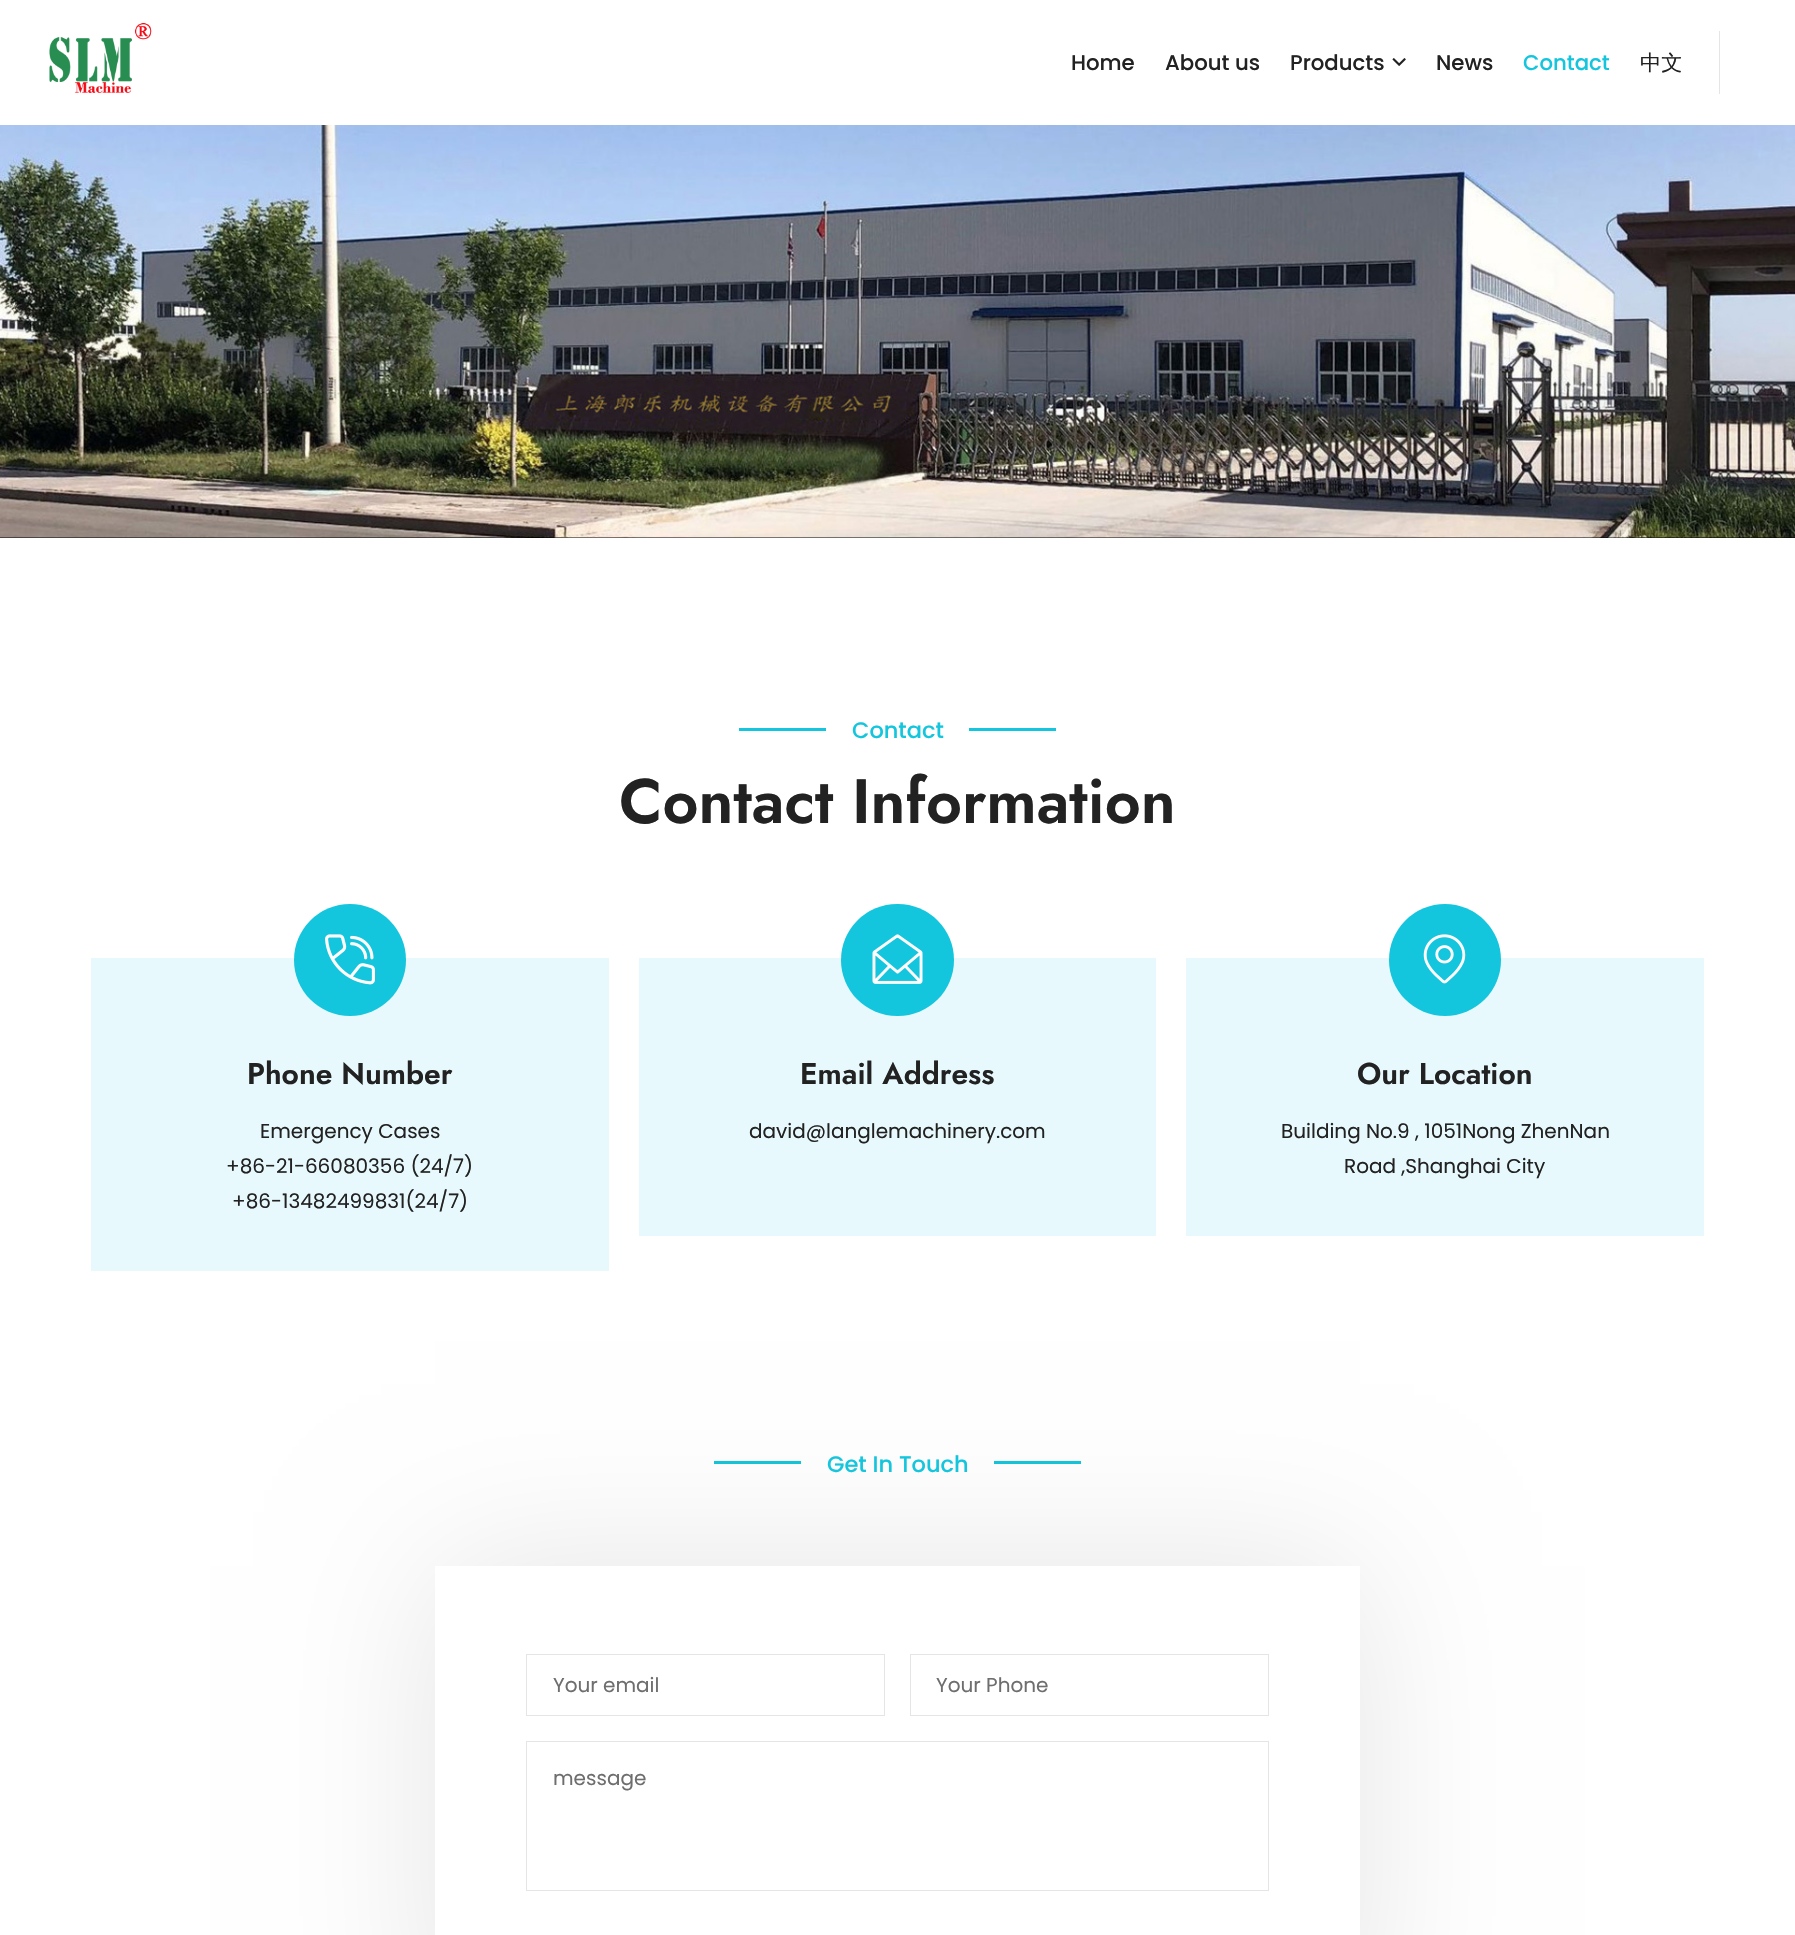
void draw(SkCanvas* canvas) {
	SkPaint fill;
	fill.setAntiAlias(true);
	auto makeFont = [&](const char* family, int weight, float size, bool italic = false) {
		SkFontStyle style(weight, SkFontStyle::kNormal_Width,
			italic ? SkFontStyle::kItalic_Slant : SkFontStyle::kUpright_Slant);
		SkFont result(fontMgr->matchFamilyStyle(family, style), size);
		result.setSubpixel(true);
		return result;
	};
	auto text = [&](const char* s, float x, float y, const SkFont& font) {
		canvas->drawString(s, x, y, font, fill);
	};
	auto box = [&](float l, float t, float r, float b) {
		canvas->drawRect(SkRect::MakeLTRB(l, t, r, b), fill);
	};
	auto roundBox = [&](float l, float t, float r, float b, float radius) {
		canvas->drawRoundRect(SkRect::MakeLTRB(l, t, r, b), radius, radius, fill);
	};
	auto picture = [&](const char* path, float l, float t, float r, float b) {
		auto image = SkImages::DeferredFromEncodedData(SkData::MakeFromFileName(path));
		canvas->drawImageRect(image, SkRect::MakeLTRB(l, t, r, b), SkSamplingOptions());
	};
	canvas->clear(0xFFFFFFFF);
	picture("image0.png", 49, 23, 152, 93);
	picture("image1.png", 1392, 58, 1406, 66);
	fill.setColor(0xFFE5E5E5);
	box(1719, 31, 1720, 94);
	fill.setColor(0xFF000000);
	box(0, 537, 1795, 538);
	picture("image2.png", 0, 125, 1795, 538);
	fill.setColor(0xFF13C5DD);
	box(739, 728, 826, 731);
	box(969, 728, 1056, 731);
	fill.setColor(0xFFE7F9FC);
	box(91, 958, 609, 1271);
	fill.setColor(0xFF13C5DD);
	canvas->drawCircle(350, 960, 56, fill);
	picture("image3.png", 325, 934, 375, 985);
	fill.setColor(0xFFE7F9FC);
	box(639, 958, 1156, 1236);
	fill.setColor(0xFF13C5DD);
	roundBox(841, 904, 954, 1016, 56);
	picture("image4.png", 872, 934, 923, 984);
	fill.setColor(0xFFE7F9FC);
	box(1186, 958, 1704, 1236);
	fill.setColor(0xFF13C5DD);
	canvas->drawCircle(1445, 960, 56, fill);
	picture("image5.png", 1423, 934, 1466, 984);
	box(714, 1461, 801, 1464);
	box(994, 1461, 1081, 1464);
	fill.setColor(0x1A000000);
	fill.setMaskFilter(SkMaskFilter::MakeBlur(kNormal_SkBlurStyle, 75));
	canvas->drawRect(SkRect::MakeLTRB(435, 1566, 1360, 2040), fill);
	fill.setMaskFilter(nullptr);
	fill.setColor(0xFFFFFFFF);
	box(435, 1566, 1360, 1935);
	fill.setStyle(SkPaint::kStroke_Style);
	fill.setStrokeWidth(1);
	fill.setColor(0xFFE5E5E5);
	canvas->drawRect(SkRect::MakeLTRB(526.5f, 1654.5f, 884.5f, 1715.5f), fill);
	canvas->drawRect(SkRect::MakeLTRB(910.5f, 1654.5f, 1268.5f, 1715.5f), fill);
	canvas->drawRect(SkRect::MakeLTRB(526.5f, 1741.5f, 1268.5f, 1890.5f), fill);
	auto font1 = makeFont("Poppins", 500, 21.25f);
	fill.setStyle(SkPaint::kFill_Style);
	fill.setColor(0xFF222222);
	text("Home", 1071, 70, font1);
	text("About us", 1165, 70, font1);
	text("Products", 1290, 70, font1);
	text("News", 1436, 70, font1);
	fill.setColor(0xFF13C5DD);
	text("Contact", 1523, 70, font1);
	auto font2 = makeFont("WenQuanYi Zen Hei", 500, 21.25f);
	fill.setColor(0xFF222222);
	text("中文", 1640, 70, font2);
	auto font3 = makeFont("Poppins", 500, 22.5f);
	fill.setColor(0xFF13C5DD);
	text("Contact", 852, 738, font3);
	auto font4 = makeFont("Jost", 600, 62.5f);
	fill.setColor(0xFF222222);
	text("Contact Information", 619, 823, font4);
	auto font5 = makeFont("Jost", 600, 30);
	text("Phone Number", 247, 1084, font5);
	auto font6 = makeFont("Poppins", 400, 20);
	text("Emergency Cases", 260, 1138, font6);
	text("+86-21-66080356 (24/7)", 226, 1173, font6);
	text("+86-13482499831(24/7)", 232, 1208, font6);
	text("Email Address", 800, 1084, font5);
	text("david@langlemachinery.com", 749, 1138, font6);
	text("Our Location", 1357, 1084, font5);
	text("Building No.9 , 1051Nong ZhenNan", 1281, 1138, font6);
	text("Road ,Shanghai City", 1344, 1173, font6);
	fill.setColor(0xFF13C5DD);
	text("Get In Touch", 827, 1472, font3);
	fill.setColor(0xFF6E6E6E);
	text("Your email", 553, 1692, font6);
	text("Your Phone", 936, 1692, font6);
	text("message", 553, 1785, font6);
}
